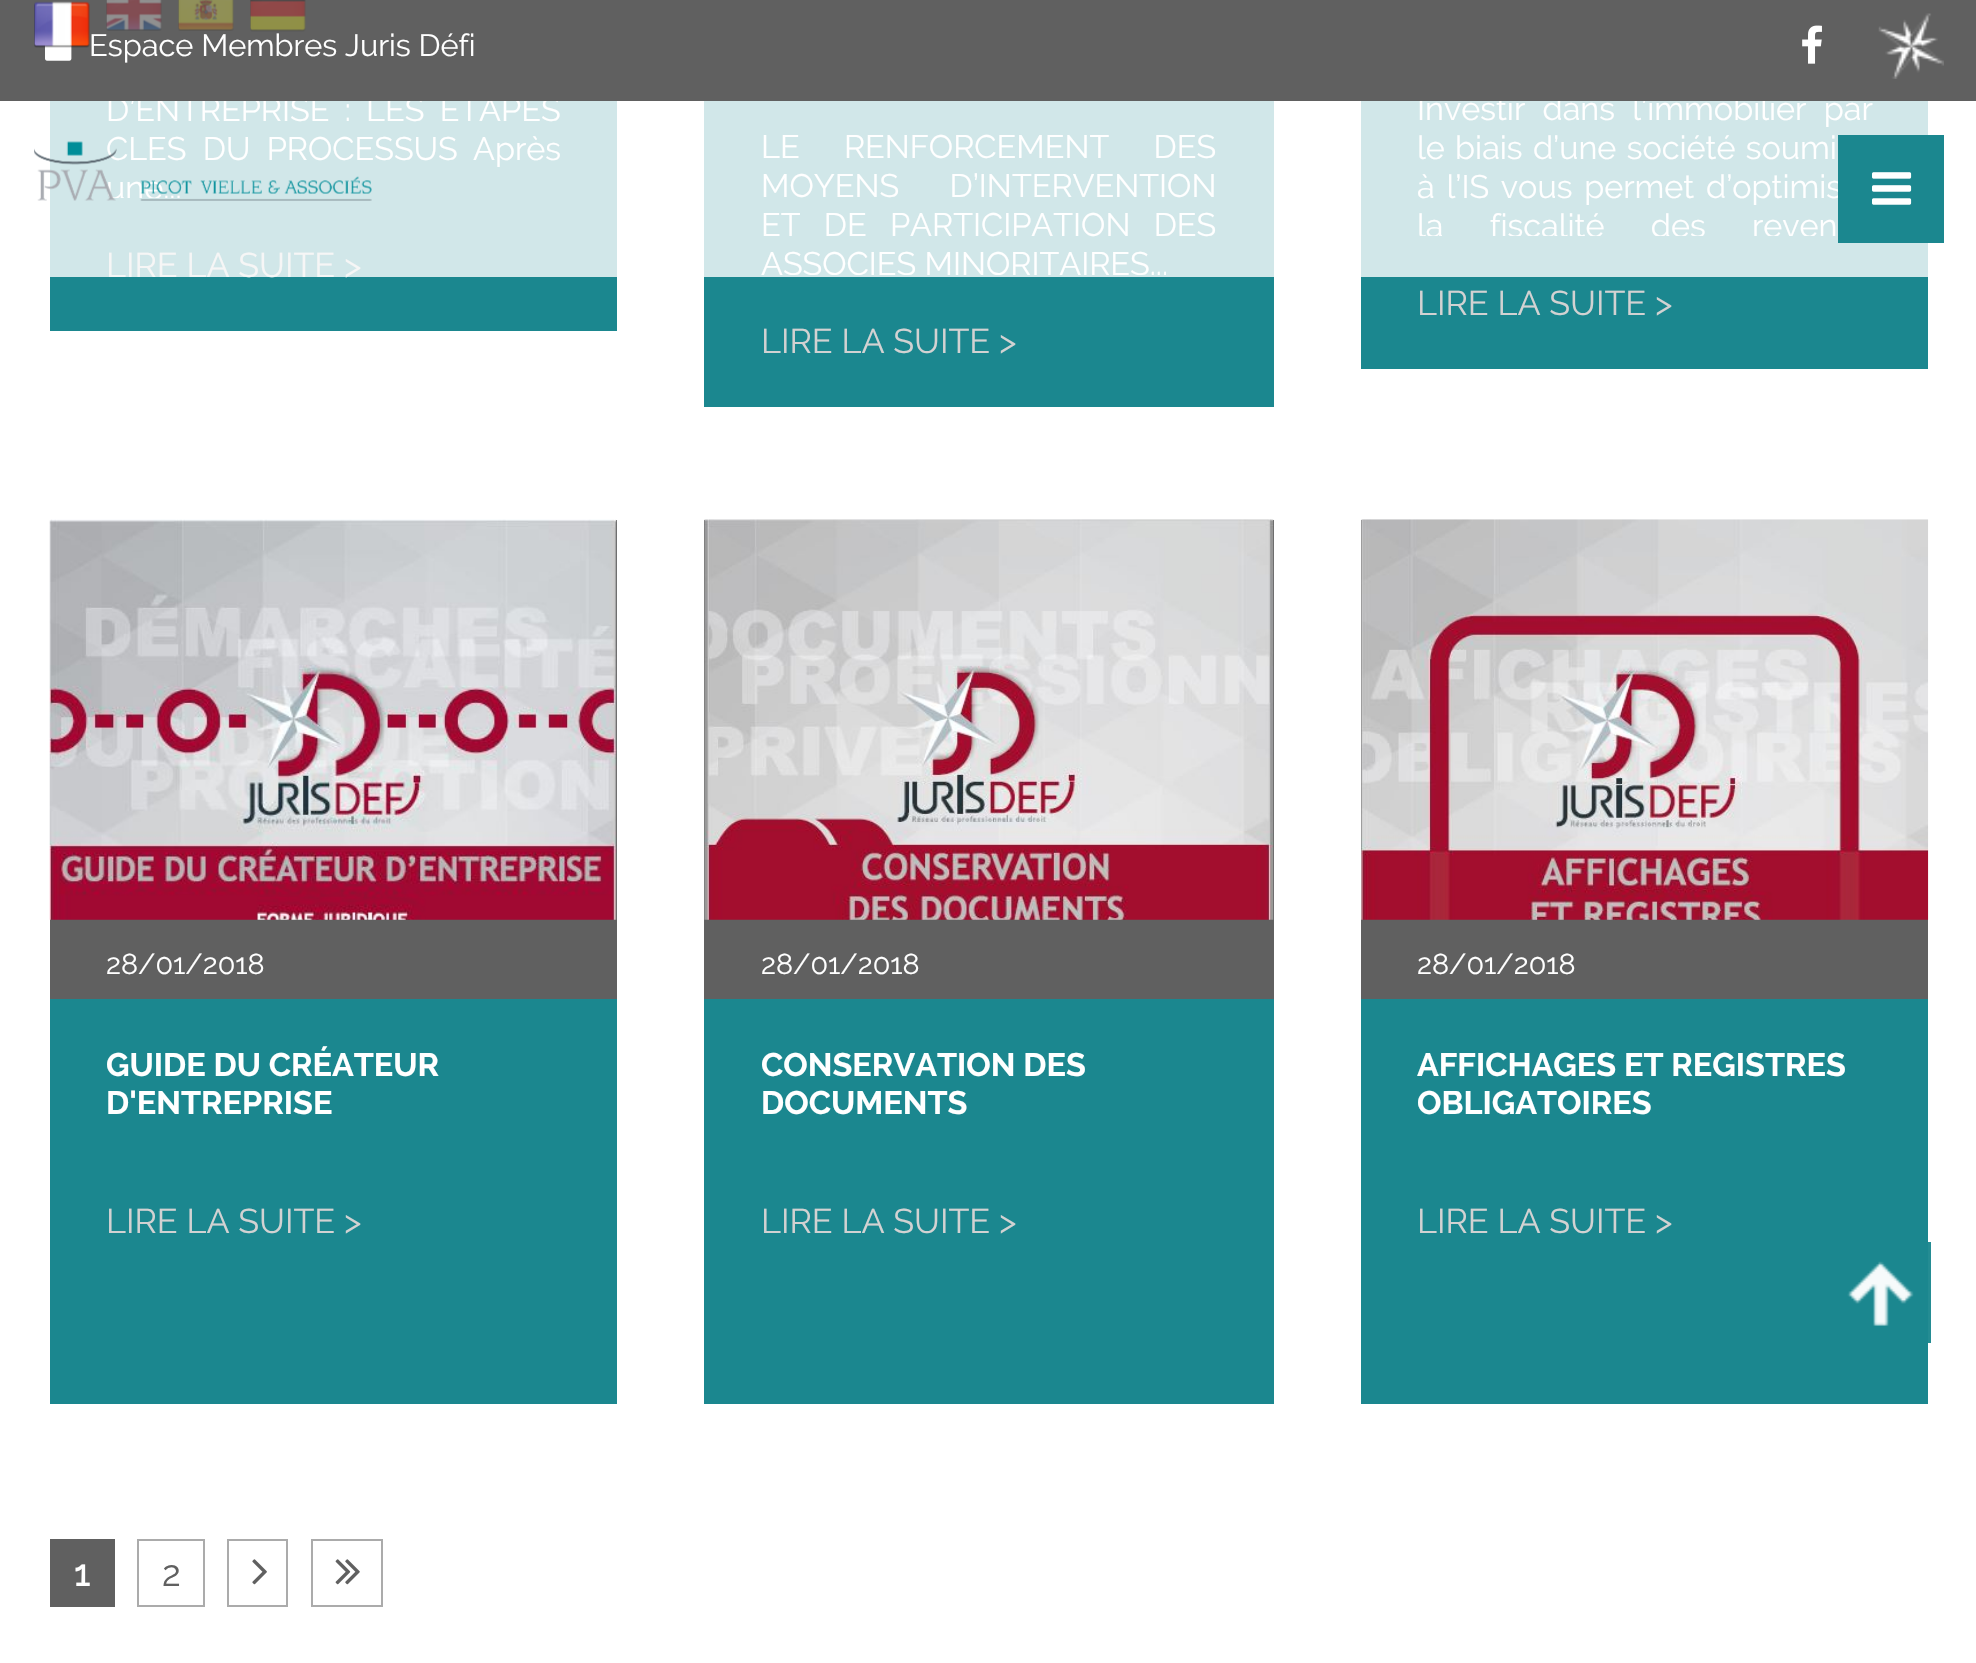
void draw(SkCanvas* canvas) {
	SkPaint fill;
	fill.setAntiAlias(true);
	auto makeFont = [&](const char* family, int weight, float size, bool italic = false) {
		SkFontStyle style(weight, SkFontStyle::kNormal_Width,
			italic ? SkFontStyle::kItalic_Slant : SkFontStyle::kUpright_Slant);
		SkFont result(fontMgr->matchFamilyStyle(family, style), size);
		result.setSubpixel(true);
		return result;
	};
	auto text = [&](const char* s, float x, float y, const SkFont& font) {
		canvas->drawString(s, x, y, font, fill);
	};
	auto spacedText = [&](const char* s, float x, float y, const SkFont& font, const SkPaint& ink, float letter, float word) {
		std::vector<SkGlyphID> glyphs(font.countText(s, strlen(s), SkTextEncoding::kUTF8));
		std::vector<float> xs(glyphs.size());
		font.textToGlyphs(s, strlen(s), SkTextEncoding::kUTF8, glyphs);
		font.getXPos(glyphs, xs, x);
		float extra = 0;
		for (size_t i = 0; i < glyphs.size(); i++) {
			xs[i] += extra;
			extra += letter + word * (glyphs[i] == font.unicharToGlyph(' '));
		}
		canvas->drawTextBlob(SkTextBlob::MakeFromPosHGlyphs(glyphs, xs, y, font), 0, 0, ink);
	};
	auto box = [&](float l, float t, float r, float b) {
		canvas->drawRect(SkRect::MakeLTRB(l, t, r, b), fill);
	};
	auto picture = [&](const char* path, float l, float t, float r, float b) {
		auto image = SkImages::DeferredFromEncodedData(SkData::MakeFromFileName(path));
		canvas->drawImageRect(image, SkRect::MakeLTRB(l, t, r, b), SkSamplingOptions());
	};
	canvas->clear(0xFFFFFFFF);
	fill.setColor(0xFF248C93);
	box(1928, 1242, 1931, 1343);
	fill.setColor(0xFF1B878F);
	box(50, 277, 617, 331);
	fill.setColor(0xFFD1E7E9);
	box(50, 101, 617, 277);
	fill.setColor(0xFF1B878F);
	box(704, 277, 1274, 407);
	fill.setColor(0xFFD1E7E9);
	box(704, 101, 1274, 277);
	fill.setColor(0xFF1B878F);
	box(1361, 277, 1928, 369);
	fill.setColor(0xFFD1E7E9);
	box(1361, 101, 1928, 277);
	fill.setColor(0xFF606060);
	box(50, 520, 617, 999);
	picture("image9.png", 49, 519, 617, 920);
	fill.setColor(0xFF1B878F);
	box(50, 999, 617, 1404);
	fill.setColor(0xFF606060);
	box(704, 520, 1274, 999);
	picture("image10.png", 704, 519, 1274, 920);
	fill.setColor(0xFF1B878F);
	box(704, 999, 1274, 1404);
	fill.setColor(0xFF606060);
	box(1361, 520, 1928, 999);
	picture("image11.png", 1361, 519, 1929, 920);
	fill.setColor(0xFF1B878F);
	box(1361, 999, 1928, 1404);
	fill.setColor(0xFF606060);
	box(50, 1539, 115, 1607);
	fill.setStyle(SkPaint::kStroke_Style);
	fill.setStrokeWidth(2);
	fill.setColor(0xFFABABAB);
	canvas->drawRect(SkRect::MakeLTRB(138, 1540, 204, 1606), fill);
	canvas->drawRect(SkRect::MakeLTRB(228, 1540, 287, 1606), fill);
	picture("image12.png", 252, 1559, 267, 1585);
	canvas->drawRect(SkRect::MakeLTRB(312, 1540, 382, 1606), fill);
	picture("image13.png", 335, 1559, 360, 1585);
	picture("image14.png", 1847, 1261, 1914, 1326);
	auto font1 = makeFont("Raleway", 400, 32.4f);
	fill.setStyle(SkPaint::kFill_Style);
	fill.setColor(0xFFFFFFFF);
	spacedText("D’ENTREPRISE : LES ETAPES", 106, 121, font1, fill, 0, 7);
	spacedText("CLES DU PROCESSUS", 106, 160, font1, fill, 0, 8);
	text("Après", 473, 160, font1);
	canvas->save();
	canvas->clipRect(SkRect::MakeLTRB(106, 18, 560, 198));
	text("une...", 106, 199, font1);
	canvas->restore();
	picture("image7.png", 34, 141, 372, 201);
	auto font2 = makeFont("Raleway", 400, 34.25f);
	fill.setColor(0xFFF6F6F6);
	text("LIRE LA SUITE >", 106, 277, font2);
	fill.setColor(0xFFFFFFFF);
	spacedText("LE RENFORCEMENT DES", 761, 158, font1, fill, 0, 36);
	spacedText("MOYENS D’INTERVENTION", 761, 197, font1, fill, 0, 42);
	spacedText("ET DE PARTICIPATION DES", 761, 236, font1, fill, 0, 15);
	canvas->save();
	canvas->clipRect(SkRect::MakeLTRB(761, 95, 1217, 275));
	text("ASSOCIES MINORITAIRES...", 761, 275, font1);
	canvas->restore();
	fill.setColor(0xFFD2D2D2);
	text("LIRE LA SUITE >", 761, 353, font2);
	fill.setColor(0xFFFFFFFF);
	spacedText("Investir dans l’immobilier par", 1417, 120, font1, fill, 0, 9);
	fill.setColor(0xFF606060);
	box(0, 0, 1976, 101);
	picture("image3.png", 250, 0, 306, 32);
	picture("image2.png", 178, 0, 234, 31);
	picture("image1.png", 106, 0, 162, 31);
	picture("image6.png", 45, 44, 72, 61);
	picture("image0.png", 34, 1, 90, 48);
	picture("image5.png", 1878, 13, 1944, 79);
	picture("image4.png", 1802, 25, 1822, 64);
	auto font3 = makeFont("Raleway", 400, 30.75f);
	fill.setColor(0xFFFFFFFF);
	text("Espace Membres Juris Défi", 89, 56, font3);
	spacedText("le biais d’une société soumi", 1417, 159, font1, fill, 0, 2);
	spacedText("à l’IS vous permet d’optimis", 1417, 198, font1, fill, 0, 3.5f);
	fill.setColor(0xFF1B878F);
	box(1838, 135, 1944, 243);
	picture("image8.png", 1872, 172, 1912, 205);
	canvas->save();
	canvas->clipRect(SkRect::MakeLTRB(1418, 56, 1872, 236));
	fill.setColor(0xFFFFFFFF);
	spacedText("la fiscalité des reven", 1417, 237, font1, fill, 0, 38);
	canvas->restore();
	fill.setColor(0xFFD2D2D2);
	text("LIRE LA SUITE >", 1417, 315, font2);
	auto font4 = makeFont("Raleway", 400, 28.75f);
	fill.setColor(0xFFFFFFFF);
	text("28/01/2018", 106, 974, font4);
	auto font5 = makeFont("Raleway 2", 700, 32.4f);
	text("GUIDE DU CRÉATEUR", 106, 1076, font5);
	text("D'ENTREPRISE", 106, 1114, font5);
	fill.setColor(0xFFD2D2D2);
	text("LIRE LA SUITE >", 106, 1233, font2);
	fill.setColor(0xFFFFFFFF);
	text("28/01/2018", 761, 974, font4);
	text("CONSERVATION DES", 761, 1076, font5);
	text("DOCUMENTS", 761, 1114, font5);
	fill.setColor(0xFFD2D2D2);
	text("LIRE LA SUITE >", 761, 1233, font2);
	fill.setColor(0xFFFFFFFF);
	text("28/01/2018", 1417, 974, font4);
	text("AFFICHAGES ET REGISTRES", 1417, 1076, font5);
	text("OBLIGATOIRES", 1417, 1114, font5);
	fill.setColor(0xFFD2D2D2);
	text("LIRE LA SUITE >", 1417, 1233, font2);
	auto font6 = makeFont("Raleway", 700, 36);
	fill.setColor(0xFFFFFFFF);
	text("1", 74, 1586, font6);
	auto font7 = makeFont("Raleway", 400, 36);
	fill.setColor(0xFF606060);
	text("2", 162, 1586, font7);
}
